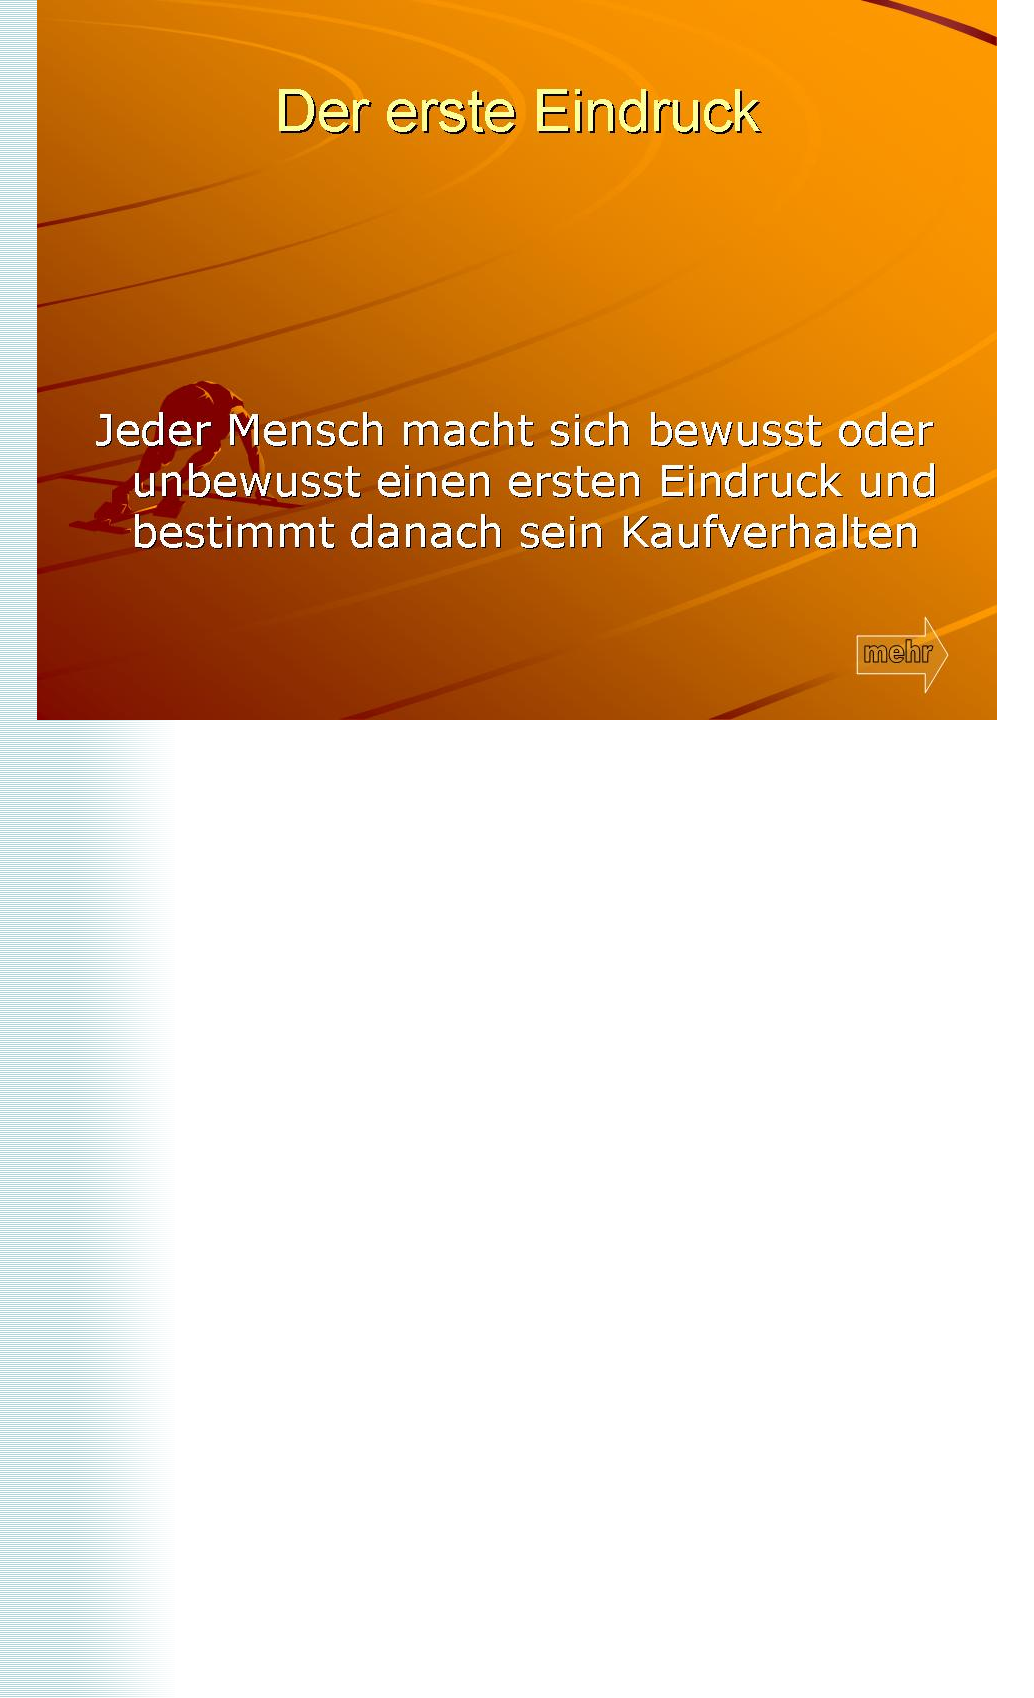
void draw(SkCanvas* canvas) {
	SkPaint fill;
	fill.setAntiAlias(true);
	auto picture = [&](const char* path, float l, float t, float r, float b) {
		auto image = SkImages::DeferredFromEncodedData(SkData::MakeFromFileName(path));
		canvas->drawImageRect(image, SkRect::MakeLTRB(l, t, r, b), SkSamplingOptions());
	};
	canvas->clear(0xFFFFFFFF);
	picture("image0.png", 0, 0, 175, 1697);
	picture("image1.png", 37, 0, 997, 720);
}
